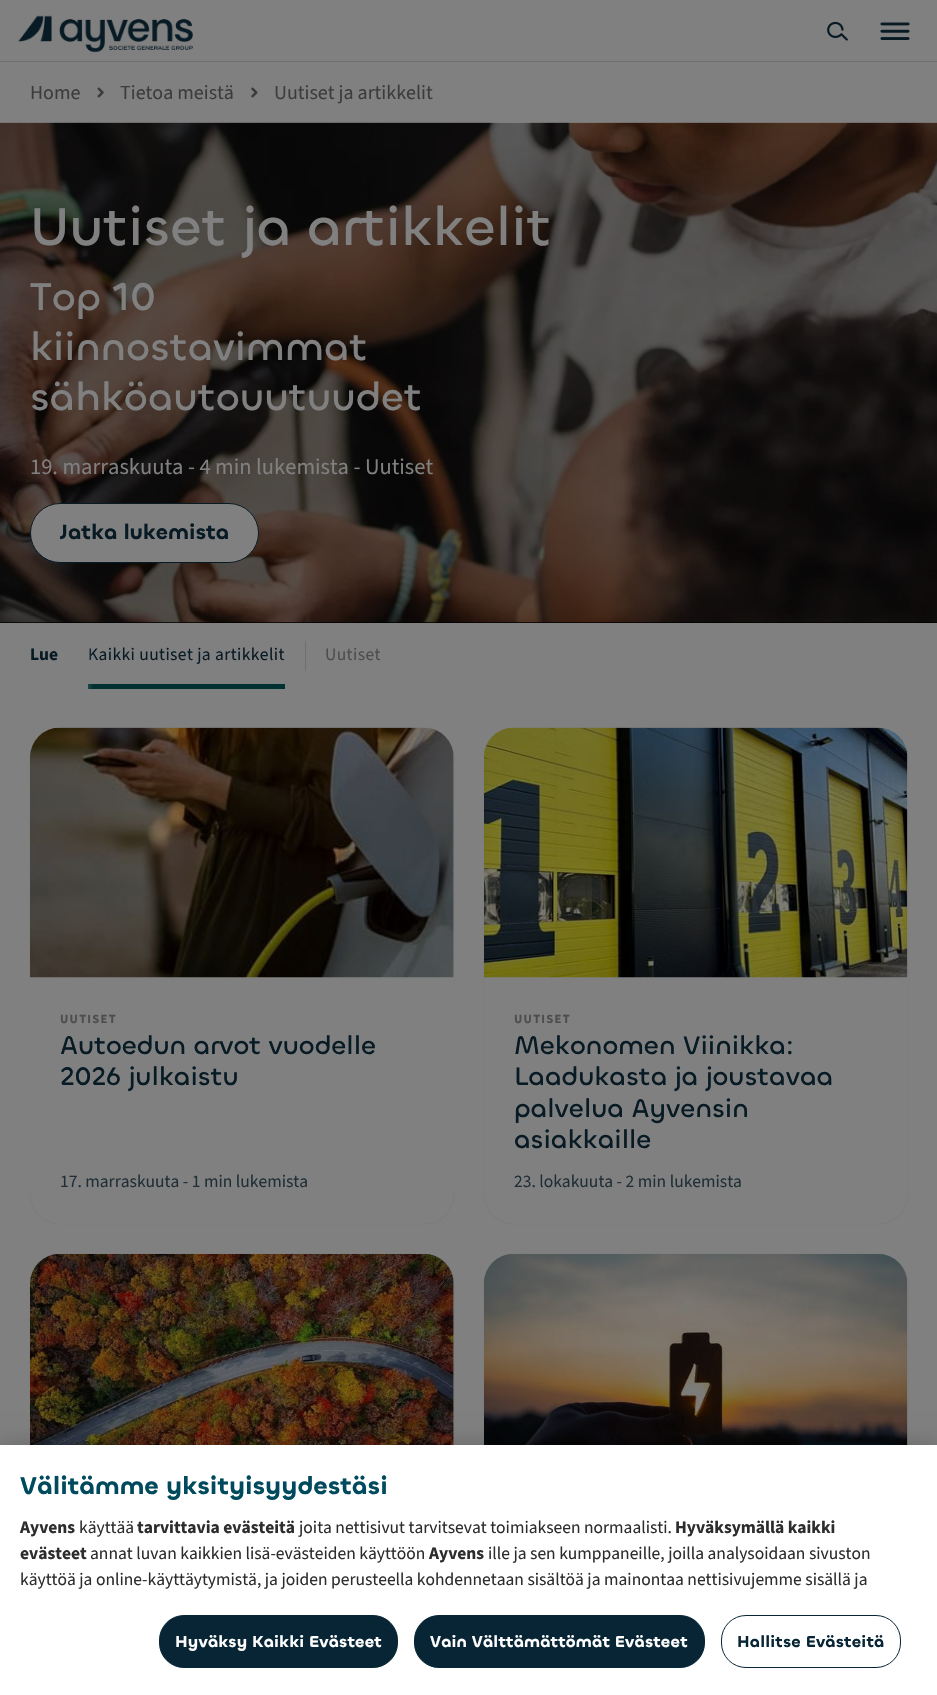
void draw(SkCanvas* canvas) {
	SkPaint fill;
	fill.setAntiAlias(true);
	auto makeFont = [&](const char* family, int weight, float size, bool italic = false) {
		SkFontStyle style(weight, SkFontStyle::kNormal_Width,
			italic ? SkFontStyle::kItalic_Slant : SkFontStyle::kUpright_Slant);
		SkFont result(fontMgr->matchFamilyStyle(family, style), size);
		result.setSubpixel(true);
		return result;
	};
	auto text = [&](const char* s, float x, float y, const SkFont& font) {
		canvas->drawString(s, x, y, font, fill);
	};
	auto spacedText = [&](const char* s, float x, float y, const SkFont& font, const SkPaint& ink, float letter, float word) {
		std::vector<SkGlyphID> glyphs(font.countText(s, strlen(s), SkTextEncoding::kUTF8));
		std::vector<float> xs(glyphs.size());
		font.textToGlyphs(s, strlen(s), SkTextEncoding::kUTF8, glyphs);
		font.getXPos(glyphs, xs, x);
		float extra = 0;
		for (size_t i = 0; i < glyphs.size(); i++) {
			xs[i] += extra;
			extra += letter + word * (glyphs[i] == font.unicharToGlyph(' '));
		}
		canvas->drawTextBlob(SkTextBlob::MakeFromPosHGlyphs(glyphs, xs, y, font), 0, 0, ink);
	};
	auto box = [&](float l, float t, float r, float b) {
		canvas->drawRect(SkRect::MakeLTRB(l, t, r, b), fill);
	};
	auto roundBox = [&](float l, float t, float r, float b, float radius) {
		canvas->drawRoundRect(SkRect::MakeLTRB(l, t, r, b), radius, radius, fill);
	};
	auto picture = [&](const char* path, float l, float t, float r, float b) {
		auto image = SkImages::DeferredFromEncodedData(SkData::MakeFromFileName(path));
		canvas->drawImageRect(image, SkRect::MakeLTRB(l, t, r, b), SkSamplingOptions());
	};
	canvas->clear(0xFF808080);
	fill.setColor(0xFF6F6F6F);
	box(0, 61, 937, 62);
	picture("image0.png", 18, 15, 193, 53);
	picture("image1.png", 827, 21, 848, 41);
	picture("image2.png", 880, 22, 910, 40);
	picture("image3.png", 97, 87, 104, 98);
	picture("image4.png", 251, 87, 258, 98);
	fill.setColor(0xFF000000);
	box(0, 123, 937, 623);
	picture("image5.png", 0, 122, 937, 623);
	fill.setColor(0xFF808080);
	canvas->drawRoundRect(SkRect::MakeLTRB(30.5f, 503.5f, 258.5f, 562.5f), 29.5f, 29.5f, fill);
	fill.setStyle(SkPaint::kStroke_Style);
	fill.setStrokeWidth(1);
	fill.setColor(0xFF081B25);
	canvas->drawRoundRect(SkRect::MakeLTRB(30.5f, 503.5f, 258.5f, 562.5f), 29.5f, 29.5f, fill);
	fill.setStyle(SkPaint::kFill_Style);
	fill.setColor(0xFF6F6F6F);
	box(305, 641, 306, 671);
	fill.setColor(0xFF003131);
	box(88, 684, 285, 689);
	fill.setColor(0x33050F21);
	fill.setMaskFilter(SkMaskFilter::MakeBlur(kNormal_SkBlurStyle, 0.5f));
	canvas->drawRoundRect(SkRect::MakeLTRB(30, 728, 454, 1224), 30, 30, fill);
	fill.setMaskFilter(nullptr);
	fill.setColor(0xFF808080);
	roundBox(30, 728, 454, 1224, 30);
	picture("image6.png", 30, 727, 454, 978);
	fill.setColor(0x33050F21);
	fill.setMaskFilter(SkMaskFilter::MakeBlur(kNormal_SkBlurStyle, 0.5f));
	canvas->drawRoundRect(SkRect::MakeLTRB(484, 728, 908, 1224), 30, 30, fill);
	fill.setMaskFilter(nullptr);
	fill.setColor(0xFF808080);
	roundBox(484, 728, 908, 1224, 30);
	picture("image7.png", 484, 727, 908, 978);
	fill.setColor(0x33050F21);
	fill.setMaskFilter(SkMaskFilter::MakeBlur(kNormal_SkBlurStyle, 0.5f));
	canvas->drawRoundRect(SkRect::MakeLTRB(30, 1254, 454, 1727), 30, 30, fill);
	fill.setMaskFilter(nullptr);
	fill.setColor(0xFF808080);
	roundBox(30, 1254, 454, 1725, 30);
	picture("image8.png", 30, 1254, 454, 1445);
	fill.setColor(0x33050F21);
	fill.setMaskFilter(SkMaskFilter::MakeBlur(kNormal_SkBlurStyle, 0.5f));
	canvas->drawRoundRect(SkRect::MakeLTRB(484, 1254, 908, 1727), 30, 30, fill);
	fill.setMaskFilter(nullptr);
	fill.setColor(0xFF808080);
	roundBox(484, 1254, 908, 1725, 30);
	picture("image9.png", 484, 1254, 908, 1445);
	fill.setColor(0x33000000);
	fill.setMaskFilter(SkMaskFilter::MakeBlur(kNormal_SkBlurStyle, 11));
	canvas->drawRect(SkRect::MakeLTRB(0, 1445, 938, 1695), fill);
	fill.setMaskFilter(nullptr);
	fill.setColor(0xFFFFFFFF);
	box(0, 1445, 937, 1695);
	fill.setColor(0xFF072534);
	canvas->drawRoundRect(SkRect::MakeLTRB(159.5f, 1615.5f, 397.5f, 1667.5f), 24.5f, 24.5f, fill);
	fill.setStyle(SkPaint::kStroke_Style);
	canvas->drawRoundRect(SkRect::MakeLTRB(159.5f, 1615.5f, 397.5f, 1667.5f), 24.5f, 24.5f, fill);
	fill.setStyle(SkPaint::kFill_Style);
	canvas->drawRoundRect(SkRect::MakeLTRB(414.5f, 1615.5f, 704.5f, 1667.5f), 24.5f, 24.5f, fill);
	fill.setStyle(SkPaint::kStroke_Style);
	canvas->drawRoundRect(SkRect::MakeLTRB(414.5f, 1615.5f, 704.5f, 1667.5f), 24.5f, 24.5f, fill);
	canvas->drawRoundRect(SkRect::MakeLTRB(721.5f, 1615.5f, 900.5f, 1667.5f), 24.5f, 24.5f, fill);
	auto font1 = makeFont("Source Sans 3", 400, 20);
	fill.setStyle(SkPaint::kFill_Style);
	fill.setColor(0xFF3B3C3C);
	text("Home", 30, 99, font1);
	text("Tietoa meistä", 120, 99, font1);
	text("Uutiset ja artikkelit", 274, 99, font1);
	auto font2 = makeFont("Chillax", 500, 55);
	fill.setColor(0xFF808080);
	text("Uutiset ja artikkelit", 30, 245, font2);
	auto font3 = makeFont("Chillax", 500, 40);
	text("Top 10", 30, 310, font3);
	text("kiinnostavimmat", 30, 360, font3);
	text("sähköautouutuudet", 30, 410, font3);
	auto font4 = makeFont("Source Sans 3", 400, 22.5f);
	text("19. marraskuuta - 4 min lukemista - Uutiset", 30, 474, font4);
	auto font5 = makeFont("Chillax", 600, 21.25f);
	fill.setColor(0xFF081B25);
	text("Jatka lukemista", 60, 539, font5);
	auto font6 = makeFont("Source Sans 3", 700, 17.5f);
	text("Lue", 30, 660, font6);
	auto font7 = makeFont("Source Sans 3", 400, 17.5f);
	spacedText("Kaikki uutiset ja artikkelit", 88, 660, font7, fill, 0.4f, 0);
	fill.setColor(0xFF4C4D4D);
	spacedText("Uutiset", 325, 660, font7, fill, 0.4f, 0);
	{
		const SkColor colors[] = {0xFF808080, 0x00808080};
		const float stops[] = {0.2f, 1};
		const SkPoint ends[] = {{68, 656}, {93, 656}};
		fill.setShader(SkGradientShader::MakeLinear(ends, colors, stops, 2, SkTileMode::kClamp));
		fill.setAlpha(255);
	}
	box(88, 648, 93, 689);
	auto font8 = makeFont("Source Sans 3", 700, 12.5f);
	fill.setShader(nullptr);
	fill.setColor(0xFF4C4D4D);
	spacedText("UUTISET", 60, 1023, font8, fill, 1.25f, 0);
	auto font9 = makeFont("Chillax", 500, 26.25f);
	fill.setColor(0xFF081B25);
	text("Autoedun arvot vuodelle", 60, 1054, font9);
	text("2026 julkaistu", 60, 1085, font9);
	fill.setColor(0xFF202F37);
	text("17. marraskuuta - 1 min lukemista", 60, 1187, font7);
	fill.setColor(0xFF4C4D4D);
	spacedText("UUTISET", 514, 1023, font8, fill, 1.25f, 0);
	fill.setColor(0xFF081B25);
	text("Mekonomen Viinikka:", 514, 1054, font9);
	text("Laadukasta ja joustavaa", 514, 1085, font9);
	text("palvelua Ayvensin", 514, 1117, font9);
	text("asiakkaille", 514, 1148, font9);
	fill.setColor(0xFF202F37);
	text("23. lokakuuta - 2 min lukemista", 514, 1187, font7);
	auto font10 = makeFont("Chillax", 600, 25);
	fill.setColor(0xFF004A5D);
	text("Välitämme yksityisyydestäsi", 20, 1494, font10);
	fill.setColor(0xFF2D2D2D);
	text("Ayvens", 20, 1533, font6);
	text("käyttää", 79, 1533, font7);
	text("tarvittavia evästeitä", 137, 1533, font6);
	text("joita nettisivut tarvitsevat toimiakseen normaalisti.", 299, 1533, font7);
	text("Hyväksymällä kaikki", 675, 1533, font6);
	text("evästeet", 20, 1559, font6);
	text("annat luvan kaikkien lisä-evästeiden käyttöön", 90, 1559, font7);
	text("Ayvens", 429, 1559, font6);
	text("ille ja sen kumppaneille, joilla analysoidaan sivuston", 488, 1559, font7);
	text("käyttöä ja online-käyttäytymistä, ja joiden perusteella kohdennetaan sisältöä ja mainontaa nettisivujemme sisällä ja", 20, 1585, font7);
	auto font11 = makeFont("Chillax", 600, 16.25f);
	fill.setColor(0xFFFFFFFF);
	spacedText("Hyväksy Kaikki Evästeet", 175, 1647, font11, fill, 0.15f, 0);
	spacedText("Vain Välttämättömät Evästeet", 430, 1647, font11, fill, 0.15f, 0);
	fill.setColor(0xFF072534);
	spacedText("Hallitse Evästeitä", 737, 1647, font11, fill, 0.15f, 0);
}
